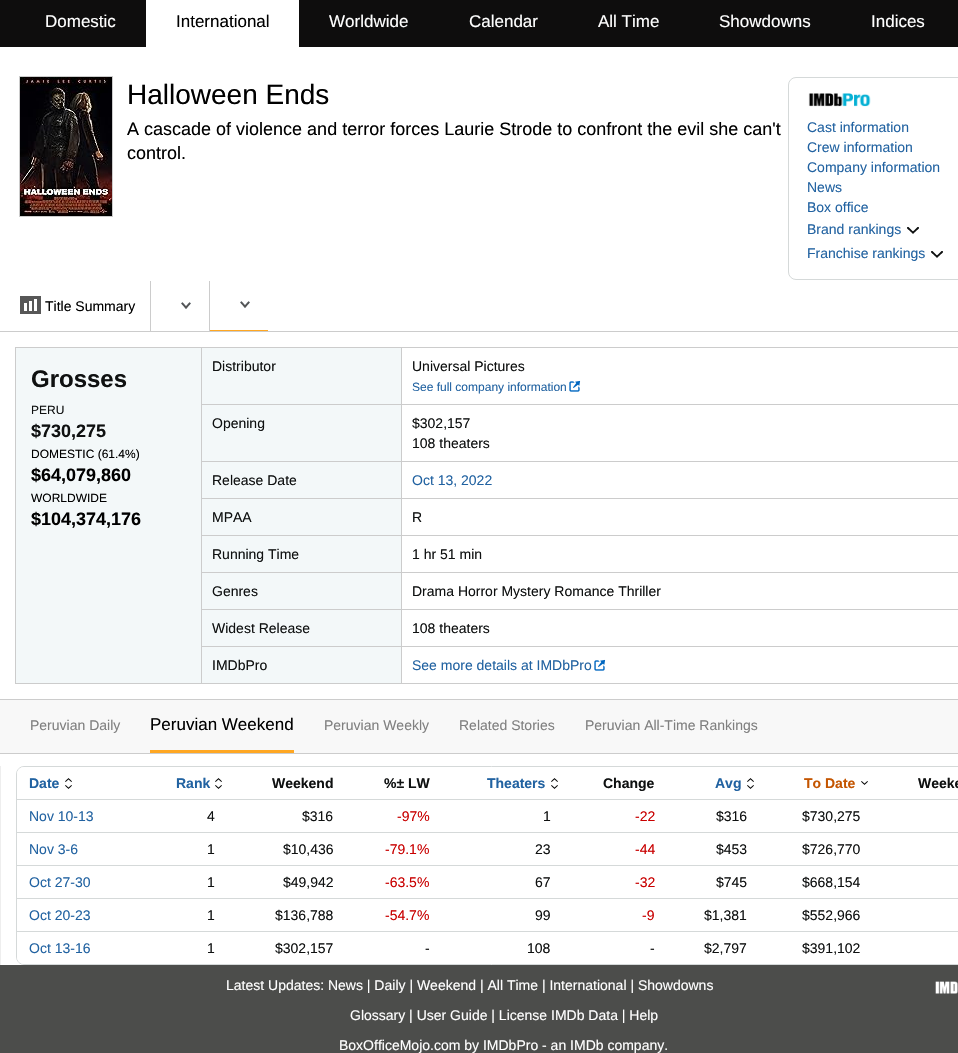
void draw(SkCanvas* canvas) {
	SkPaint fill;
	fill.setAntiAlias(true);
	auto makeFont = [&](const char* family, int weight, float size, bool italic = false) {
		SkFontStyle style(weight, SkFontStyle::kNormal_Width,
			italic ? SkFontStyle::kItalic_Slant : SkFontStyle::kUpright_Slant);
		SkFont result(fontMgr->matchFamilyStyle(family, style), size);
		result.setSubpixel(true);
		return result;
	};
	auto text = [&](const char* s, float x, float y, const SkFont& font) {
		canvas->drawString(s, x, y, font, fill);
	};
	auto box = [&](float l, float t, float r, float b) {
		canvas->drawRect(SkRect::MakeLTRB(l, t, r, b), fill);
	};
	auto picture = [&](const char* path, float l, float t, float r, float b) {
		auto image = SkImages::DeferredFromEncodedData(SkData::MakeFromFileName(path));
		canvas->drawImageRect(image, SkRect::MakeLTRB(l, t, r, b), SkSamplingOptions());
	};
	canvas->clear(0xFF0E0D0D);
	fill.setColor(0xFFFFFFFF);
	box(146, 0, 299, 47);
	box(0, 47, 958, 965);
	picture("image0.png", 20, 77, 112, 216);
	fill.setStyle(SkPaint::kStroke_Style);
	fill.setStrokeWidth(1);
	fill.setColor(0xFFCCCCCC);
	canvas->drawRect(SkRect::MakeLTRB(19.5f, 76.5f, 112.5f, 216.5f), fill);
	fill.setColor(0xFFD5D9D9);
	canvas->drawRoundRect(SkRect::MakeLTRB(788.5f, 77.5f, 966.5f, 279.5f), 7.5f, 7.5f, fill);
	picture("image1.png", 808, 93, 871, 107);
	picture("image2.png", 907, 227, 919, 234);
	picture("image2.png", 931, 251, 943, 258);
	fill.setStyle(SkPaint::kFill_Style);
	fill.setColor(0xFFCCCCCC);
	box(0, 331, 958, 332);
	box(150, 281, 151, 331);
	picture("image3.png", 20, 296, 41, 314);
	box(209, 281, 210, 331);
	picture("image4.png", 181, 302, 191, 309);
	fill.setColor(0xFFFFA722);
	box(210, 330, 268, 331);
	picture("image4.png", 240, 301, 250, 308);
	fill.setColor(0xFFF3F8F9);
	canvas->drawRect(SkRect::MakeLTRB(15.5f, 347.5f, 201.5f, 683.5f), fill);
	fill.setStyle(SkPaint::kStroke_Style);
	fill.setColor(0xFFCCCCCC);
	canvas->drawRect(SkRect::MakeLTRB(15.5f, 347.5f, 201.5f, 683.5f), fill);
	fill.setStyle(SkPaint::kFill_Style);
	box(202, 347, 958, 348);
	fill.setColor(0xFFF3F8F9);
	box(202, 348, 401, 404);
	fill.setColor(0xFFCCCCCC);
	box(401, 348, 402, 404);
	picture("image5.png", 569, 380, 581, 392);
	box(202, 404, 958, 405);
	fill.setColor(0xFFF3F8F9);
	box(202, 405, 401, 461);
	fill.setColor(0xFFCCCCCC);
	box(401, 405, 402, 461);
	box(202, 461, 958, 462);
	fill.setColor(0xFFF3F8F9);
	box(202, 462, 401, 498);
	fill.setColor(0xFFCCCCCC);
	box(401, 462, 402, 498);
	box(202, 498, 958, 499);
	fill.setColor(0xFFF3F8F9);
	box(202, 499, 401, 535);
	fill.setColor(0xFFCCCCCC);
	box(401, 499, 402, 535);
	box(202, 535, 958, 536);
	fill.setColor(0xFFF3F8F9);
	box(202, 536, 401, 572);
	fill.setColor(0xFFCCCCCC);
	box(401, 536, 402, 572);
	box(202, 572, 958, 573);
	fill.setColor(0xFFF3F8F9);
	box(202, 573, 401, 609);
	fill.setColor(0xFFCCCCCC);
	box(401, 573, 402, 609);
	box(202, 609, 958, 610);
	fill.setColor(0xFFF3F8F9);
	box(202, 610, 401, 646);
	fill.setColor(0xFFCCCCCC);
	box(401, 610, 402, 646);
	box(202, 646, 958, 647);
	box(202, 683, 958, 684);
	fill.setColor(0xFFF3F8F9);
	box(202, 647, 401, 683);
	fill.setColor(0xFFCCCCCC);
	box(401, 647, 402, 683);
	picture("image5.png", 594, 659, 606, 671);
	fill.setColor(0xFFF8F8F8);
	box(0, 700, 958, 753);
	fill.setColor(0xFFCCCCCC);
	box(0, 699, 958, 700);
	box(0, 753, 958, 754);
	fill.setColor(0xFFFFA722);
	box(150, 750, 294, 753);
	fill.setColor(0xFFEEEEEE);
	box(0, 766, 1, 965);
	fill.setStyle(SkPaint::kStroke_Style);
	fill.setColor(0xFFD5D9D9);
	canvas->drawRoundRect(SkRect::MakeLTRB(16.5f, 766.5f, 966.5f, 964.5f), 7.5f, 7.5f, fill);
	fill.setStyle(SkPaint::kFill_Style);
	fill.setColor(0xFFFFFFFF);
	canvas->drawPath(SkPathBuilder().moveTo(24, 767).lineTo(139, 767).lineTo(139, 800).lineTo(17, 800).lineTo(17, 774).cubicTo(17, 770, 20, 767, 24, 767).close().detach(), fill);
	fill.setColor(0xFFD5D9D9);
	box(17, 799, 958, 800);
	picture("image6.png", 65, 778, 72, 782);
	picture("image7.png", 65, 785, 72, 789);
	picture("image6.png", 215, 778, 222, 782);
	picture("image7.png", 215, 785, 222, 789);
	picture("image6.png", 551, 778, 558, 782);
	picture("image7.png", 551, 785, 558, 789);
	picture("image6.png", 747, 778, 754, 782);
	picture("image7.png", 747, 785, 754, 789);
	picture("image7.png", 861, 781, 868, 785);
	box(17, 832, 958, 833);
	box(17, 865, 958, 866);
	box(17, 898, 958, 899);
	box(17, 931, 958, 932);
	fill.setColor(0xFFFFFFFF);
	canvas->drawPath(SkPathBuilder().moveTo(17, 932).lineTo(139, 932).lineTo(139, 964).lineTo(24, 964).cubicTo(20, 964, 17, 961, 17, 957).close().detach(), fill);
	fill.setColor(0xFF4C4D4B);
	box(0, 965, 958, 1053);
	picture("image8.png", 935, 981, 958, 994);
	auto font1 = makeFont("Liberation Sans", 400, 17);
	fill.setColor(0xFFFFFFFF);
	text("Domestic", 45, 27, font1);
	fill.setColor(0xFF000000);
	text("International", 176, 27, font1);
	fill.setColor(0xFFFFFFFF);
	text("Worldwide", 329, 27, font1);
	text("Calendar", 469, 27, font1);
	text("All Time", 598, 27, font1);
	text("Showdowns", 719, 27, font1);
	text("Indices", 871, 27, font1);
	auto font2 = makeFont("Liberation Sans", 400, 28);
	fill.setColor(0xFF000000);
	text("Halloween Ends", 127, 104, font2);
	auto font3 = makeFont("Liberation Sans", 400, 18);
	text("A cascade of violence and terror forces Laurie Strode to confront the evil she can't", 127, 135, font3);
	text("control.", 127, 159, font3);
	auto font4 = makeFont("Liberation Sans", 400, 14);
	fill.setColor(0xFF2162A1);
	text("Cast information", 807, 132, font4);
	text("Crew information", 807, 152, font4);
	text("Company information", 807, 172, font4);
	text("News", 807, 192, font4);
	text("Box office", 807, 212, font4);
	text("Brand rankings", 807, 234, font4);
	text("Franchise rankings", 807, 258, font4);
	fill.setColor(0xFF000000);
	text("Title Summary", 45, 311, font4);
	auto font5 = makeFont("Liberation Sans", 700, 24);
	fill.setColor(0xFF0F1111);
	text("Grosses", 31, 387, font5);
	auto font6 = makeFont("Liberation Sans", 400, 12);
	text("PERU", 31, 414, font6);
	auto font7 = makeFont("Liberation Sans", 700, 18);
	text("$730,275", 31, 437, font7);
	fill.setColor(0xFF000000);
	text("DOMESTIC (61.4%)", 31, 458, font6);
	text("$64,079,860", 31, 481, font7);
	text("WORLDWIDE", 31, 502, font6);
	text("$104,374,176", 31, 525, font7);
	fill.setColor(0xFF0F1111);
	text("Distributor", 212, 371, font4);
	text("Universal Pictures", 412, 371, font4);
	fill.setColor(0xFF2162A1);
	text("See full company information", 412, 391, font6);
	fill.setColor(0xFF0F1111);
	text("Opening", 212, 428, font4);
	text("$302,157", 412, 428, font4);
	text("108 theaters", 412, 448, font4);
	text("Release Date", 212, 485, font4);
	fill.setColor(0xFF2162A1);
	text("Oct 13, 2022", 412, 485, font4);
	fill.setColor(0xFF0F1111);
	text("MPAA", 212, 522, font4);
	text("R", 412, 522, font4);
	text("Running Time", 212, 559, font4);
	text("1 hr 51 min", 412, 559, font4);
	text("Genres", 212, 596, font4);
	text("Drama Horror Mystery Romance Thriller", 412, 596, font4);
	text("Widest Release", 212, 633, font4);
	text("108 theaters", 412, 633, font4);
	text("IMDbPro", 212, 670, font4);
	fill.setColor(0xFF2162A1);
	text("See more details at IMDbPro", 412, 670, font4);
	fill.setColor(0xFF808080);
	text("Peruvian Daily", 30, 730, font4);
	fill.setColor(0xFF000000);
	text("Peruvian Weekend", 150, 730, font1);
	fill.setColor(0xFF808080);
	text("Peruvian Weekly", 324, 730, font4);
	text("Related Stories", 459, 730, font4);
	text("Peruvian All-Time Rankings", 585, 730, font4);
	auto font8 = makeFont("Liberation Sans", 700, 14);
	fill.setColor(0xFF2162A1);
	text("Date", 29, 788, font8);
	text("Rank", 176, 788, font8);
	fill.setColor(0xFF0F1111);
	text("Weekend", 272, 788, font8);
	text("%± LW", 384, 788, font8);
	fill.setColor(0xFF2162A1);
	text("Theaters", 487, 788, font8);
	fill.setColor(0xFF0F1111);
	text("Change", 603, 788, font8);
	fill.setColor(0xFF2162A1);
	text("Avg", 715, 788, font8);
	fill.setColor(0xFFC45500);
	text("To Date", 804, 788, font8);
	fill.setColor(0xFF0F1111);
	text("Weeke", 918, 788, font8);
	fill.setColor(0xFF2162A1);
	text("Nov 10-13", 29, 821, font4);
	fill.setColor(0xFF0F1111);
	text("4", 207, 821, font4);
	text("$316", 302, 821, font4);
	fill.setColor(0xFFC90000);
	text("-97%", 397, 821, font4);
	fill.setColor(0xFF0F1111);
	text("1", 543, 821, font4);
	fill.setColor(0xFFC90000);
	text("-22", 635, 821, font4);
	fill.setColor(0xFF0F1111);
	text("$316", 716, 821, font4);
	text("$730,275", 802, 821, font4);
	fill.setColor(0xFF2162A1);
	text("Nov 3-6", 29, 854, font4);
	fill.setColor(0xFF0F1111);
	text("1", 207, 854, font4);
	text("$10,436", 283, 854, font4);
	fill.setColor(0xFFC90000);
	text("-79.1%", 385, 854, font4);
	fill.setColor(0xFF0F1111);
	text("23", 535, 854, font4);
	fill.setColor(0xFFC90000);
	text("-44", 635, 854, font4);
	fill.setColor(0xFF0F1111);
	text("$453", 716, 854, font4);
	text("$726,770", 802, 854, font4);
	fill.setColor(0xFF2162A1);
	text("Oct 27-30", 29, 887, font4);
	fill.setColor(0xFF0F1111);
	text("1", 207, 887, font4);
	text("$49,942", 283, 887, font4);
	fill.setColor(0xFFC90000);
	text("-63.5%", 385, 887, font4);
	fill.setColor(0xFF0F1111);
	text("67", 535, 887, font4);
	fill.setColor(0xFFC90000);
	text("-32", 635, 887, font4);
	fill.setColor(0xFF0F1111);
	text("$745", 716, 887, font4);
	text("$668,154", 802, 887, font4);
	fill.setColor(0xFF2162A1);
	text("Oct 20-23", 29, 920, font4);
	fill.setColor(0xFF0F1111);
	text("1", 207, 920, font4);
	text("$136,788", 275, 920, font4);
	fill.setColor(0xFFC90000);
	text("-54.7%", 385, 920, font4);
	fill.setColor(0xFF0F1111);
	text("99", 535, 920, font4);
	fill.setColor(0xFFC90000);
	text("-9", 642, 920, font4);
	fill.setColor(0xFF0F1111);
	text("$1,381", 704, 920, font4);
	text("$552,966", 802, 920, font4);
	fill.setColor(0xFF2162A1);
	text("Oct 13-16", 29, 953, font4);
	fill.setColor(0xFF0F1111);
	text("1", 207, 953, font4);
	text("$302,157", 275, 953, font4);
	text("-", 425, 953, font4);
	text("108", 527, 953, font4);
	text("-", 650, 953, font4);
	text("$2,797", 704, 953, font4);
	text("$391,102", 802, 953, font4);
	fill.setColor(0xFFFFFFFF);
	text("Latest Updates: News | Daily | Weekend | All Time | International | Showdowns", 226, 990, font4);
	text("Glossary | User Guide | License IMDb Data | Help", 350, 1020, font4);
	text("BoxOfficeMojo.com by IMDbPro - an IMDb company.", 339, 1050, font4);
}
